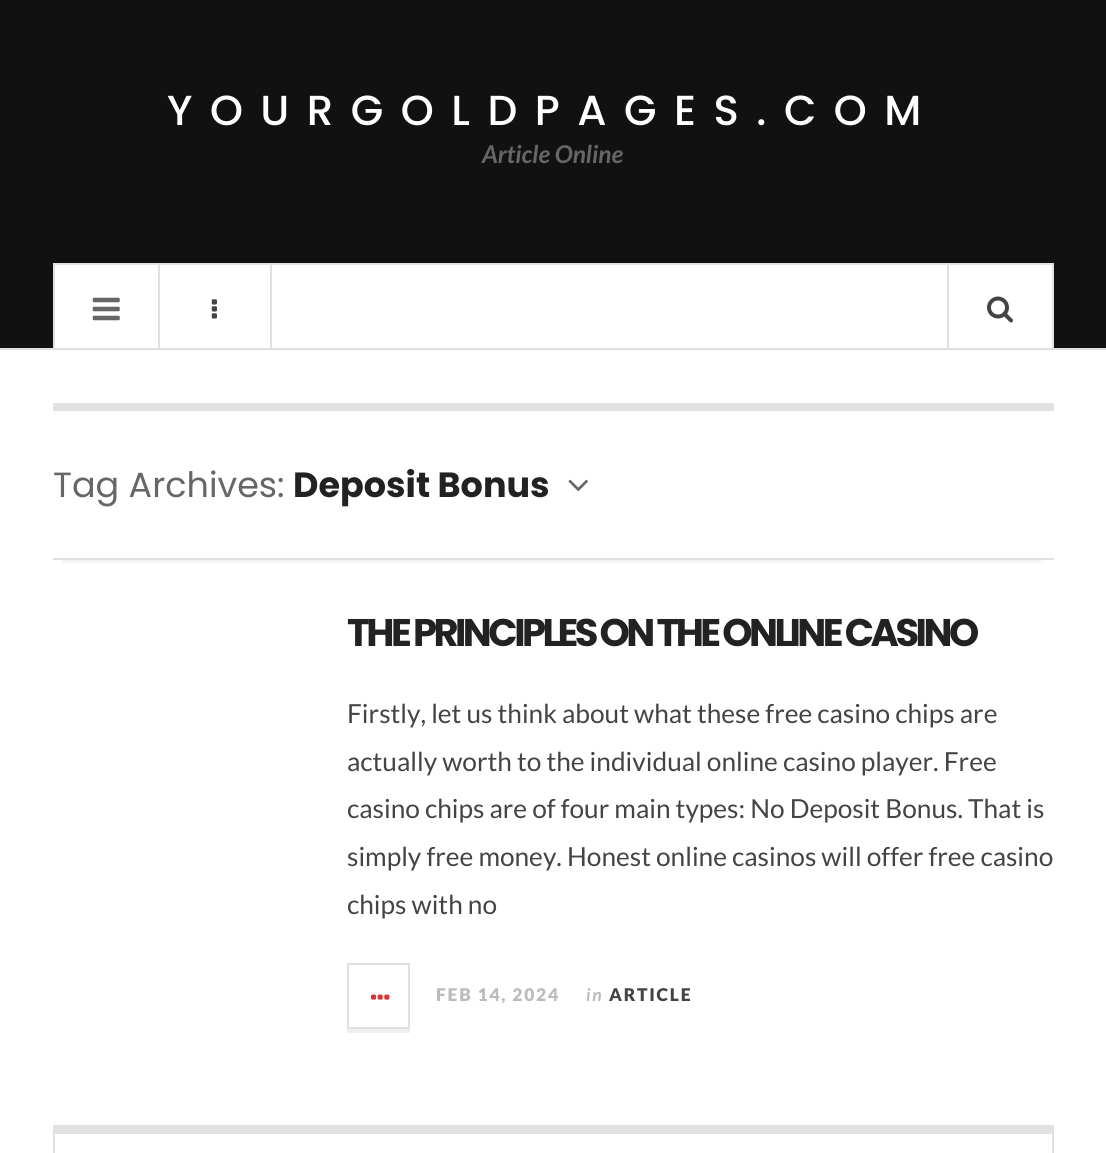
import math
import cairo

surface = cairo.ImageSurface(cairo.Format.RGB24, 1106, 1153)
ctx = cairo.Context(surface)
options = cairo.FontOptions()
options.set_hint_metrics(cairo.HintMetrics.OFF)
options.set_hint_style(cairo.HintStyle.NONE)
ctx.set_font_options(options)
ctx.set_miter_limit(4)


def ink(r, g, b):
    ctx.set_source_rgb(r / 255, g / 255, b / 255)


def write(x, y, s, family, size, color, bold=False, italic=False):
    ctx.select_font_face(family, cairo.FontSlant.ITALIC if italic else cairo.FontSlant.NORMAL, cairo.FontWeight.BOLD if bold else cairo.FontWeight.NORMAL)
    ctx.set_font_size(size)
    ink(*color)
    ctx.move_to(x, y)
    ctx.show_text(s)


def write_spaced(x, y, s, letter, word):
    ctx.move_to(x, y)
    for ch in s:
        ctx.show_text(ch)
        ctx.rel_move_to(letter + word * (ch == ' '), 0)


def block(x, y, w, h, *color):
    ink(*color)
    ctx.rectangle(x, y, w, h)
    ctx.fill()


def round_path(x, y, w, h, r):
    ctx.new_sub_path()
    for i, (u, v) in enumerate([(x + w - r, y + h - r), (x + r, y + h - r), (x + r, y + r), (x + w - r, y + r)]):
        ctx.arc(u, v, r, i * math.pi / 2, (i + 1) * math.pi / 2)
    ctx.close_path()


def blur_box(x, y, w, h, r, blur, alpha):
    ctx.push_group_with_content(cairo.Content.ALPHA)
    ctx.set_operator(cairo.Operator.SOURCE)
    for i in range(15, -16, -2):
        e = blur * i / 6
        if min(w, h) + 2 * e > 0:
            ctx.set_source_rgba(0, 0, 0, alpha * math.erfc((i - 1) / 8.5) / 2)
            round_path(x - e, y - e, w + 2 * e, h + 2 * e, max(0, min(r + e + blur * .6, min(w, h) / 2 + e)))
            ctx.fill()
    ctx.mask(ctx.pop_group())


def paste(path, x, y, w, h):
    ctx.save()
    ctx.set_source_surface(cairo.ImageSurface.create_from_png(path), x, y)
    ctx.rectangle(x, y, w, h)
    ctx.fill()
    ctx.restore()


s1 = dict(family="Lato", size=24.5, color=(102, 102, 102), bold=True, italic=True)
s2 = dict(family="Poppins", size=35, color=(102, 102, 102))
s3 = dict(family="Poppins", size=35, color=(34, 34, 34), bold=True)
s4 = dict(family="Lato", size=26.25, color=(68, 68, 68))

ink(255, 255, 255)
ctx.paint()
block(0, 0, 1106, 348, 17, 17, 17)
block(0, 348, 1106, 2, 225, 225, 225)
ctx.select_font_face("Poppins Medium")
ctx.set_font_size(42)
ink(255, 255, 255)
write_spaced(167, 125, "YOURGOLDPAGES.COM", 17.5, 0)
write(482, 163, "Article Online", **s1)
ink(255, 255, 255)
ctx.rectangle(54, 264, 999, 85)
ctx.fill_preserve()
ink(225, 225, 225)
ctx.stroke()
block(158, 264, 2, 84, 225, 225, 225)
paste("pic1.png", 92, 297, 28, 24)
block(270, 264, 2, 84, 225, 225, 225)
paste("pic2.png", 211, 299, 6, 20)
block(947, 264, 2, 84, 225, 225, 225)
paste("pic3.png", 987, 296, 26, 27)
block(53, 403, 1001, 8, 225, 225, 225)
ctx.save()
ctx.rectangle(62, 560, 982, 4)
ctx.clip()
ink(0, 0, 0)
blur_box(63, 432, 980, 128, 0, 5, 0.1)
ctx.restore()
block(53, 558, 1001, 2, 225, 225, 225)
write(53, 497, "Tag Archives:", **s2)
write(293, 497, "Deposit Bonus", **s3)
paste("pic4.png", 568, 479, 20, 13)
ctx.set_font_size(38.5)
write_spaced(347, 646, "THE PRINCIPLES ON THE ONLINE CASINO", -3.5, 0)
write(347, 723, "Firstly, let us think about what these free casino chips are", **s4)
write(347, 771, "actually worth to the individual online casino player. Free", **s4)
write(347, 818, "casino chips are of four main types: No Deposit Bonus. That is", **s4)
write(347, 866, "simply free money. Honest online casinos will offer free casino", **s4)
write(347, 914, "chips with no", **s4)
ink(240, 240, 240)
ctx.new_path()
ctx.move_to(347, 1029)
ctx.line_to(347, 1033)
ctx.line_to(410, 1033)
ctx.line_to(410, 966)
ctx.line_to(410, 1029)
ctx.close_path()
ctx.fill()
ctx.rectangle(348, 964, 61, 64)
ink(225, 225, 225)
ctx.stroke()
paste("pic5.png", 371, 994, 19, 6)
ctx.select_font_face("Lato Black")
ctx.set_font_size(17.5)
ink(187, 187, 187)
write_spaced(436, 1001, "FEB 14, 2024", 1.75, 0)
ctx.select_font_face("Lato", cairo.FontSlant.ITALIC, cairo.FontWeight.BOLD)
write_spaced(586, 1001, "in", 1.75, 0)
ctx.select_font_face("Lato Black")
ink(68, 68, 68)
write_spaced(609, 1001, "ARTICLE", 1.75, 0)
block(55, 1125, 997, 9, 225, 225, 225)
block(1052, 1125, 2, 28, 225, 225, 225)
block(53, 1125, 2, 28, 225, 225, 225)
surface.write_to_png("screenshot.png")
